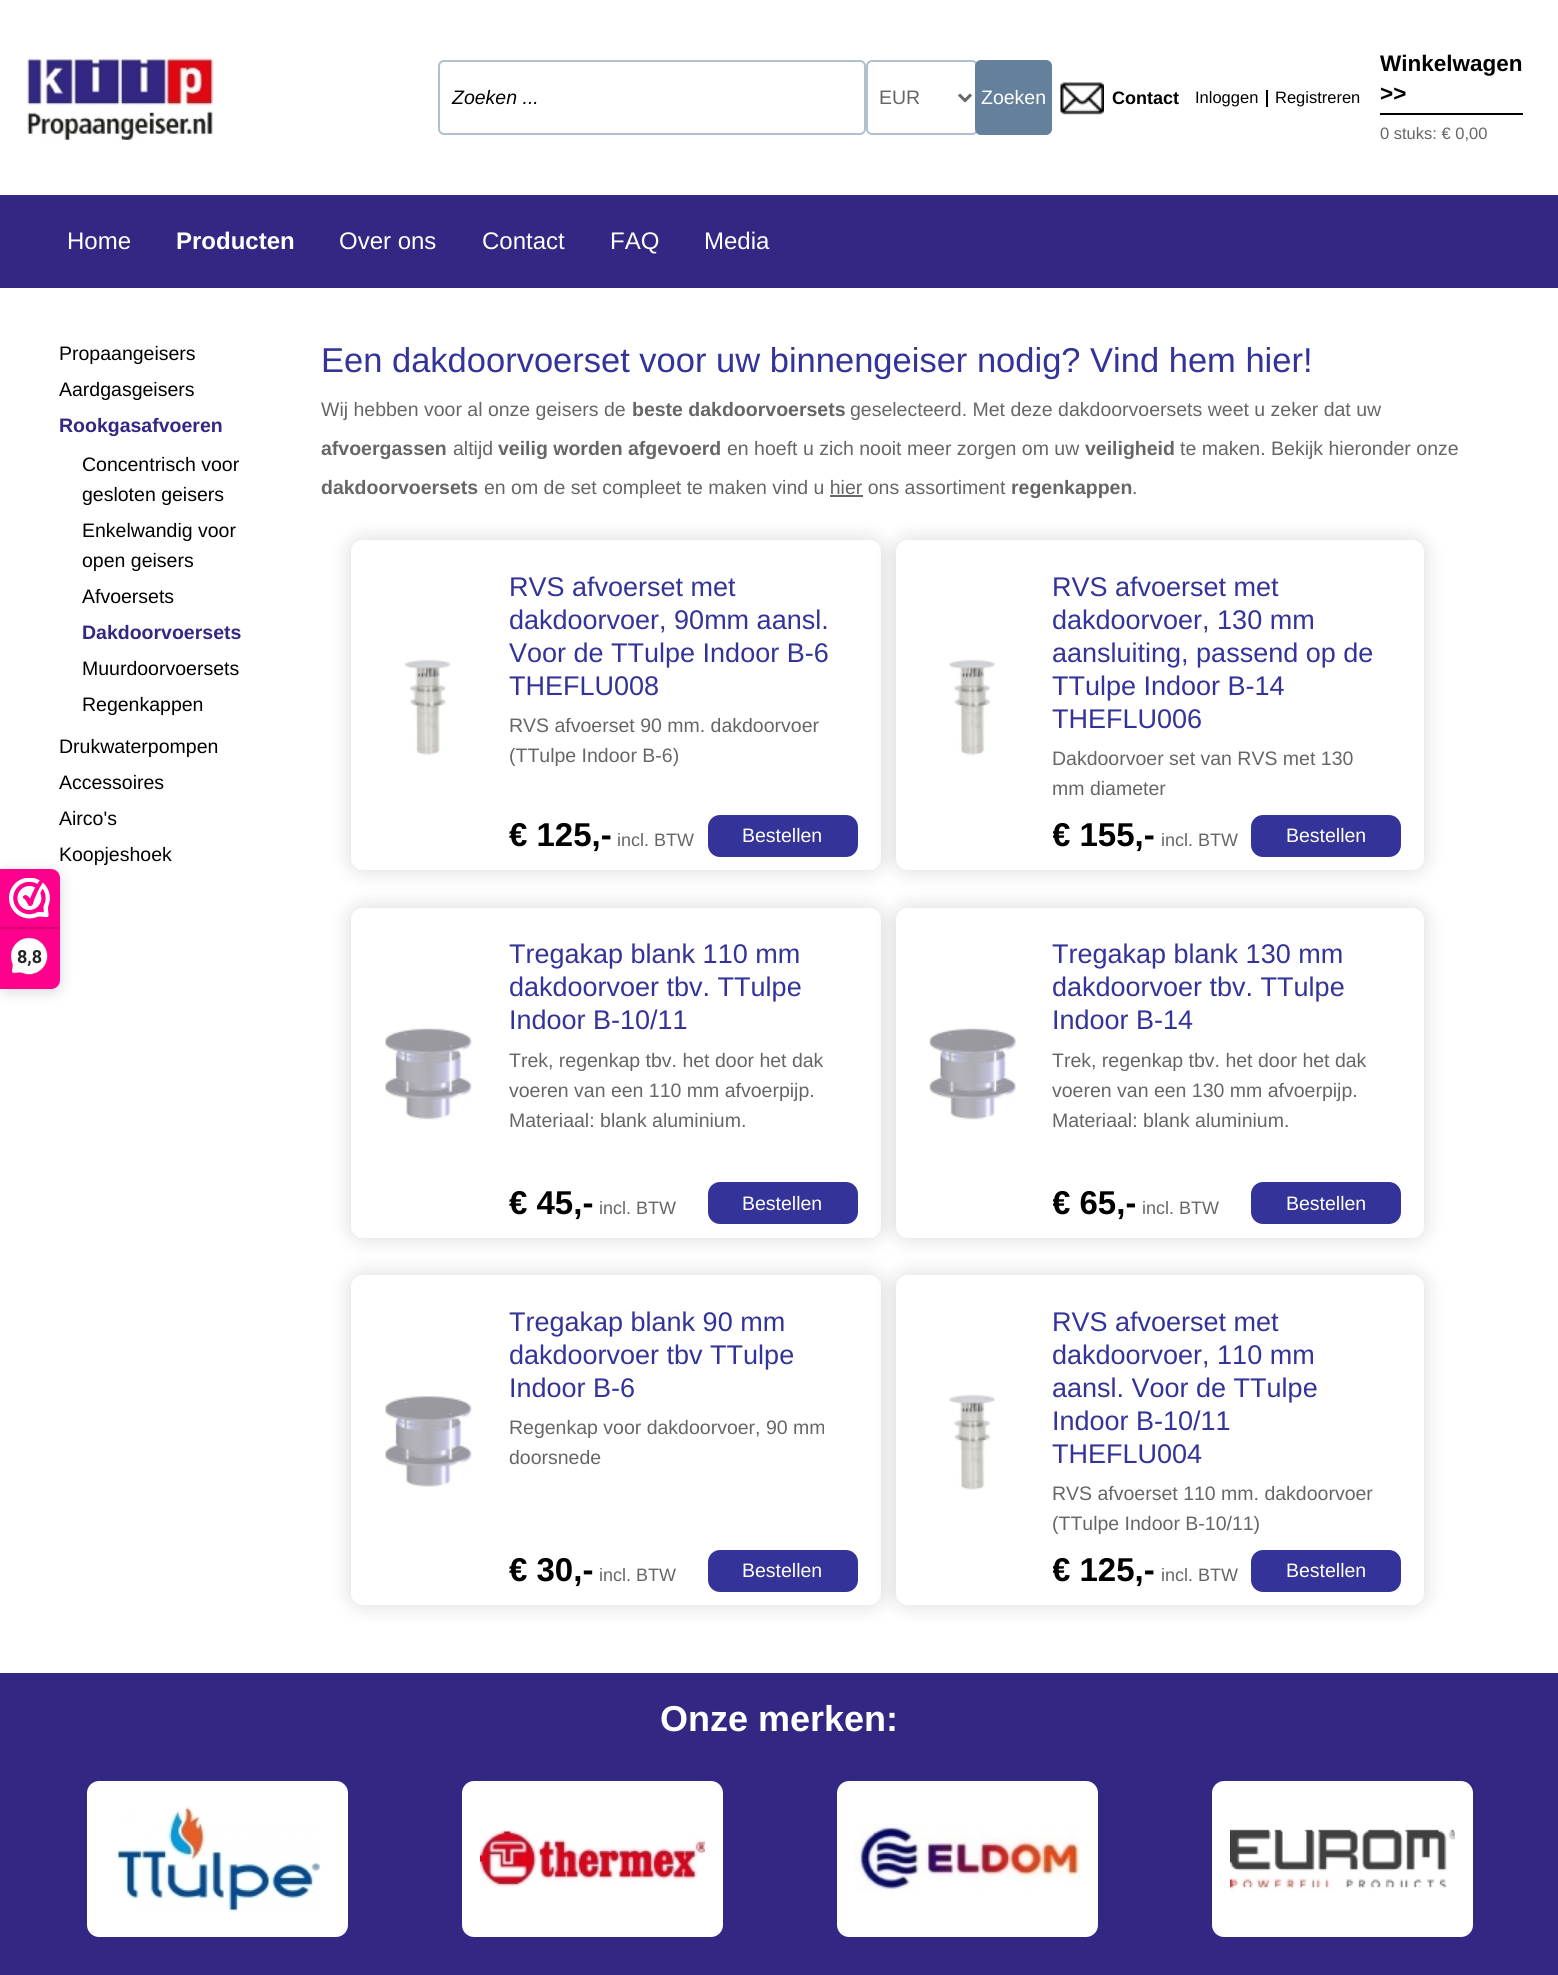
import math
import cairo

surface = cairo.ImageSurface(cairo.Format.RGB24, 1558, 1975)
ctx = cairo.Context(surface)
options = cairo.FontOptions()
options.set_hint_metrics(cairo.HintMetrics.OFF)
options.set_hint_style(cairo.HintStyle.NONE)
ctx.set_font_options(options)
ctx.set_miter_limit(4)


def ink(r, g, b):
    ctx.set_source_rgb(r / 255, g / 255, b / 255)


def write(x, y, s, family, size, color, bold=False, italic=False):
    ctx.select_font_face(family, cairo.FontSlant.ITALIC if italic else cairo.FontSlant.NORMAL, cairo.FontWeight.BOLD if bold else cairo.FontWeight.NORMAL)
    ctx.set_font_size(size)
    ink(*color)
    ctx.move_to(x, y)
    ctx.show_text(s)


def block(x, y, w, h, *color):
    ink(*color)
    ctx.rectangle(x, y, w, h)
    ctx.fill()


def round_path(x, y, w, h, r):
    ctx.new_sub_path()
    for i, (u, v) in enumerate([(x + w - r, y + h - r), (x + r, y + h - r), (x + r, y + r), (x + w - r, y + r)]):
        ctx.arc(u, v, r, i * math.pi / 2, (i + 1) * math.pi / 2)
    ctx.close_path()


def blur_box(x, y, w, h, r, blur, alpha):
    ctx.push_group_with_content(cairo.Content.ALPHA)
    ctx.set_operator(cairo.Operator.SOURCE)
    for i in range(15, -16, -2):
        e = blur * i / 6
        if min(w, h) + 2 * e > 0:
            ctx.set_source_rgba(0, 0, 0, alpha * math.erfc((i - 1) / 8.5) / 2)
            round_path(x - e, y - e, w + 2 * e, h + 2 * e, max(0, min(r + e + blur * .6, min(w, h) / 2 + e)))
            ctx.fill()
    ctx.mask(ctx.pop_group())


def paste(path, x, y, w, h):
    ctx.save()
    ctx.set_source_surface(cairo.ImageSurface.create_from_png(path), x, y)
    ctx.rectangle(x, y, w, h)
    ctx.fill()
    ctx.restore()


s1 = dict(family="Roboto", size=18, color=(39, 38, 38), bold=True)
s2 = dict(family="Liberation Sans", size=19.5, color=(0, 0, 0), italic=True)
s3 = dict(family="Liberation Sans", size=19.5, color=(102, 102, 102))
s4 = dict(family="Liberation Sans", size=19.5, color=(255, 255, 255))
s5 = dict(family="Liberation Sans", size=18, color=(0, 0, 0), bold=True)
s6 = dict(family="Liberation Sans", size=16.5, color=(0, 0, 0))
s7 = dict(family="Liberation Sans", size=22.5, color=(0, 0, 0), bold=True)
s8 = dict(family="Liberation Sans", size=16.5, color=(102, 102, 102))
s9 = dict(family="Liberation Sans", size=24, color=(255, 255, 255))
s10 = dict(family="Liberation Sans", size=24, color=(255, 255, 255), bold=True)
s11 = dict(family="Liberation Sans", size=19.5, color=(0, 0, 0))
s12 = dict(family="Liberation Sans", size=19.5, color=(50, 39, 131), bold=True)
s13 = dict(family="Liberation Sans", size=34.5, color=(51, 51, 153))
s14 = dict(family="Liberation Sans", size=19.5, color=(102, 102, 102), bold=True)
s15 = dict(family="Liberation Sans", size=27, color=(51, 51, 153))
s16 = dict(family="Liberation Sans", size=33, color=(0, 0, 0), bold=True)
s17 = dict(family="Liberation Sans", size=18, color=(102, 102, 102))
s18 = dict(family="Liberation Sans", size=36, color=(255, 255, 255), bold=True)

ink(255, 255, 255)
ctx.paint()
ink(0, 0, 0)
blur_box(0, 872, 60, 120, 9, 7.5, 0.15)
ink(254, 0, 140)
ctx.new_path()
ctx.move_to(0, 869)
ctx.line_to(51, 869)
ctx.curve_to(56, 869, 60, 873, 60, 878)
ctx.line_to(60, 980)
ctx.curve_to(60, 985, 56, 989, 51, 989)
ctx.line_to(0, 989)
ctx.close_path()
ctx.fill()
paste("pic1.png", 9, 878, 41, 41)
block(0, 927, 59, 2, 216, 0, 119)
paste("pic2.png", 10, 937, 38, 38)
write(17, 963, "8,8", **s1)
paste("pic3.png", 27, 56, 187, 84)
round_path(439, 61, 426, 73, 5)
ink(178, 192, 206)
ctx.stroke()
write(452, 104, "Zoeken ...", **s2)
round_path(867, 61, 110, 73, 5)
ink(178, 192, 206)
ctx.stroke()
ctx.new_path()
ctx.move_to(959, 94.5)
ctx.line_to(965, 100.5)
ctx.line_to(971, 94.5)
ink(102, 102, 102)
ctx.set_line_width(3)
ctx.stroke()
write(879, 104, "EUR", **s3)
ink(100, 128, 156)
round_path(975, 60, 77, 75, 6)
ctx.fill()
write(981, 104, "Zoeken", **s4)
paste("pic4.png", 1060, 82, 44, 33)
write(1112, 104, "Contact", **s5)
write(1195, 103, "Inloggen", **s6)
block(1266, 90, 2, 17, 0, 0, 0)
write(1275, 103, "Registreren", **s6)
block(1380, 113, 143, 2, 0, 0, 0)
write(1380, 71, "Winkelwagen", **s7)
write(1380, 101, ">>", **s7)
write(1380, 139, "0 stuks: € 0,00", **s8)
block(0, 195, 1558, 93, 50, 39, 131)
write(67, 249, "Home", **s9)
write(176, 249, "Producten", **s10)
write(339, 249, "Over ons", **s9)
write(482, 249, "Contact", **s9)
write(610, 249, "FAQ", **s9)
write(704, 249, "Media", **s9)
write(59, 360, "Propaangeisers", **s11)
write(59, 396, "Aardgasgeisers", **s11)
write(59, 432, "Rookgasafvoeren", **s12)
write(82, 471, "Concentrisch voor", **s11)
write(82, 501, "gesloten geisers", **s11)
write(82, 537, "Enkelwandig voor", **s11)
write(82, 567, "open geisers", **s11)
write(82, 603, "Afvoersets", **s11)
write(82, 639, "Dakdoorvoersets", **s12)
write(82, 675, "Muurdoorvoersets", **s11)
write(82, 711, "Regenkappen", **s11)
write(59, 753, "Drukwaterpompen", **s11)
write(59, 789, "Accessoires", **s11)
write(59, 825, "Airco's", **s11)
write(59, 861, "Koopjeshoek", **s11)
write(321, 372, "Een dakdoorvoerset voor uw binnengeiser nodig? Vind hem hier!", **s13)
write(321, 416, "Wij hebben voor al onze geisers de", **s3)
write(632, 416, "beste dakdoorvoersets", **s14)
write(850, 416, "geselecteerd. Met deze dakdoorvoersets weet u zeker dat uw", **s3)
write(321, 455, "afvoergassen", **s14)
write(453, 455, "altijd", **s3)
write(498, 455, "veilig worden afgevoerd", **s14)
write(727, 455, "en hoeft u zich nooit meer zorgen om uw", **s3)
write(1085, 455, "veiligheid", **s14)
write(1180, 455, "te maken. Bekijk hieronder onze", **s3)
write(321, 494, "dakdoorvoersets", **s14)
write(484, 494, "en om de set compleet te maken vind u hier ons assortiment", **s3)
write(1011, 494, "regenkappen", **s14)
write(1132, 494, ".", **s3)
block(830, 495, 33, 2, 102, 102, 102)
ink(0, 0, 0)
blur_box(351, 540, 530, 330, 12, 11, 0.15)
ink(255, 255, 255)
round_path(351, 540, 530, 330, 12)
ctx.fill()
paste("pic5.png", 404, 659, 47, 96)
write(509, 596, "RVS afvoerset met", **s15)
write(509, 629, "dakdoorvoer, 90mm aansl.", **s15)
write(509, 662, "Voor de TTulpe Indoor B-6", **s15)
write(509, 695, "THEFLU008", **s15)
write(509, 732, "RVS afvoerset 90 mm. dakdoorvoer", **s3)
write(509, 762, "(TTulpe Indoor B-6)", **s3)
write(509, 846, "€ 125,-", **s16)
write(617, 846, "incl. BTW", **s17)
ink(51, 51, 153)
round_path(708, 815, 150, 42, 12)
ctx.fill()
write(742, 842, "Bestellen", **s4)
ink(0, 0, 0)
blur_box(896, 540, 528, 330, 12, 11, 0.15)
ink(255, 255, 255)
round_path(896, 540, 528, 330, 12)
ctx.fill()
paste("pic6.png", 949, 659, 46, 96)
write(1052, 596, "RVS afvoerset met", **s15)
write(1052, 629, "dakdoorvoer, 130 mm", **s15)
write(1052, 662, "aansluiting, passend op de", **s15)
write(1052, 695, "TTulpe Indoor B-14", **s15)
write(1052, 728, "THEFLU006", **s15)
write(1052, 765, "Dakdoorvoer set van RVS met 130", **s3)
write(1052, 795, "mm diameter", **s3)
ctx.save()
ctx.rectangle(1053, 821, 185, 34)
ctx.clip()
write(1052, 846, "€ 155,-", **s16)
ctx.restore()
write(1161, 846, "incl. BTW", **s17)
ink(51, 51, 153)
round_path(1251, 815, 150, 42, 12)
ctx.fill()
write(1286, 842, "Bestellen", **s4)
ink(0, 0, 0)
blur_box(351, 908, 530, 330, 12, 11, 0.15)
ink(255, 255, 255)
round_path(351, 908, 530, 330, 12)
ctx.fill()
paste("pic7.png", 385, 1028, 87, 92)
write(509, 963, "Tregakap blank 110 mm", **s15)
write(509, 996, "dakdoorvoer tbv. TTulpe", **s15)
write(509, 1029, "Indoor B-10/11", **s15)
write(509, 1067, "Trek, regenkap tbv. het door het dak", **s3)
write(509, 1097, "voeren van een 110 mm afvoerpijp.", **s3)
write(509, 1127, "Materiaal: blank aluminium.", **s3)
write(509, 1214, "€ 45,-", **s16)
write(599, 1214, "incl. BTW", **s17)
ink(51, 51, 153)
round_path(708, 1182, 150, 42, 12)
ctx.fill()
write(742, 1210, "Bestellen", **s4)
ink(0, 0, 0)
blur_box(896, 908, 528, 330, 12, 11, 0.15)
ink(255, 255, 255)
round_path(896, 908, 528, 330, 12)
ctx.fill()
paste("pic8.png", 929, 1028, 87, 92)
write(1052, 963, "Tregakap blank 130 mm", **s15)
write(1052, 996, "dakdoorvoer tbv. TTulpe", **s15)
write(1052, 1029, "Indoor B-14", **s15)
write(1052, 1067, "Trek, regenkap tbv. het door het dak", **s3)
write(1052, 1097, "voeren van een 130 mm afvoerpijp.", **s3)
write(1052, 1127, "Materiaal: blank aluminium.", **s3)
ctx.save()
ctx.rectangle(1053, 1188, 167, 35)
ctx.clip()
write(1052, 1214, "€ 65,-", **s16)
ctx.restore()
write(1142, 1214, "incl. BTW", **s17)
ink(51, 51, 153)
round_path(1251, 1182, 150, 42, 12)
ctx.fill()
write(1286, 1210, "Bestellen", **s4)
ink(0, 0, 0)
blur_box(351, 1275, 530, 330, 12, 11, 0.15)
ink(255, 255, 255)
round_path(351, 1275, 530, 330, 12)
ctx.fill()
paste("pic9.png", 385, 1396, 87, 91)
write(509, 1331, "Tregakap blank 90 mm", **s15)
write(509, 1364, "dakdoorvoer tbv TTulpe", **s15)
write(509, 1397, "Indoor B-6", **s15)
write(509, 1434, "Regenkap voor dakdoorvoer, 90 mm", **s3)
write(509, 1464, "doorsnede", **s3)
write(509, 1581, "€ 30,-", **s16)
write(599, 1581, "incl. BTW", **s17)
ink(51, 51, 153)
round_path(708, 1550, 150, 42, 12)
ctx.fill()
write(742, 1577, "Bestellen", **s4)
ink(0, 0, 0)
blur_box(896, 1275, 528, 330, 12, 11, 0.15)
ink(255, 255, 255)
round_path(896, 1275, 528, 330, 12)
ctx.fill()
paste("pic6.png", 949, 1394, 46, 96)
write(1052, 1331, "RVS afvoerset met", **s15)
write(1052, 1364, "dakdoorvoer, 110 mm", **s15)
write(1052, 1397, "aansl. Voor de TTulpe", **s15)
write(1052, 1430, "Indoor B-10/11", **s15)
write(1052, 1463, "THEFLU004", **s15)
write(1052, 1500, "RVS afvoerset 110 mm. dakdoorvoer", **s3)
write(1052, 1530, "(TTulpe Indoor B-10/11)", **s3)
ctx.save()
ctx.rectangle(1053, 1556, 185, 34)
ctx.clip()
write(1052, 1581, "€ 125,-", **s16)
ctx.restore()
write(1161, 1581, "incl. BTW", **s17)
ink(51, 51, 153)
round_path(1251, 1550, 150, 42, 12)
ctx.fill()
write(1286, 1577, "Bestellen", **s4)
block(0, 1673, 1558, 302, 50, 39, 131)
write(660, 1731, "Onze merken:", **s18)
round_path(87, 1781, 261, 156, 12)
ctx.fill()
paste("pic10.png", 115, 1806, 206, 107)
round_path(462, 1781, 261, 156, 12)
ctx.fill()
paste("pic11.png", 480, 1829, 225, 58)
round_path(837, 1781, 261, 156, 12)
ctx.fill()
paste("pic12.png", 855, 1824, 225, 69)
round_path(1212, 1781, 261, 156, 12)
ctx.fill()
paste("pic13.png", 1230, 1829, 225, 62)
surface.write_to_png("screenshot.png")
